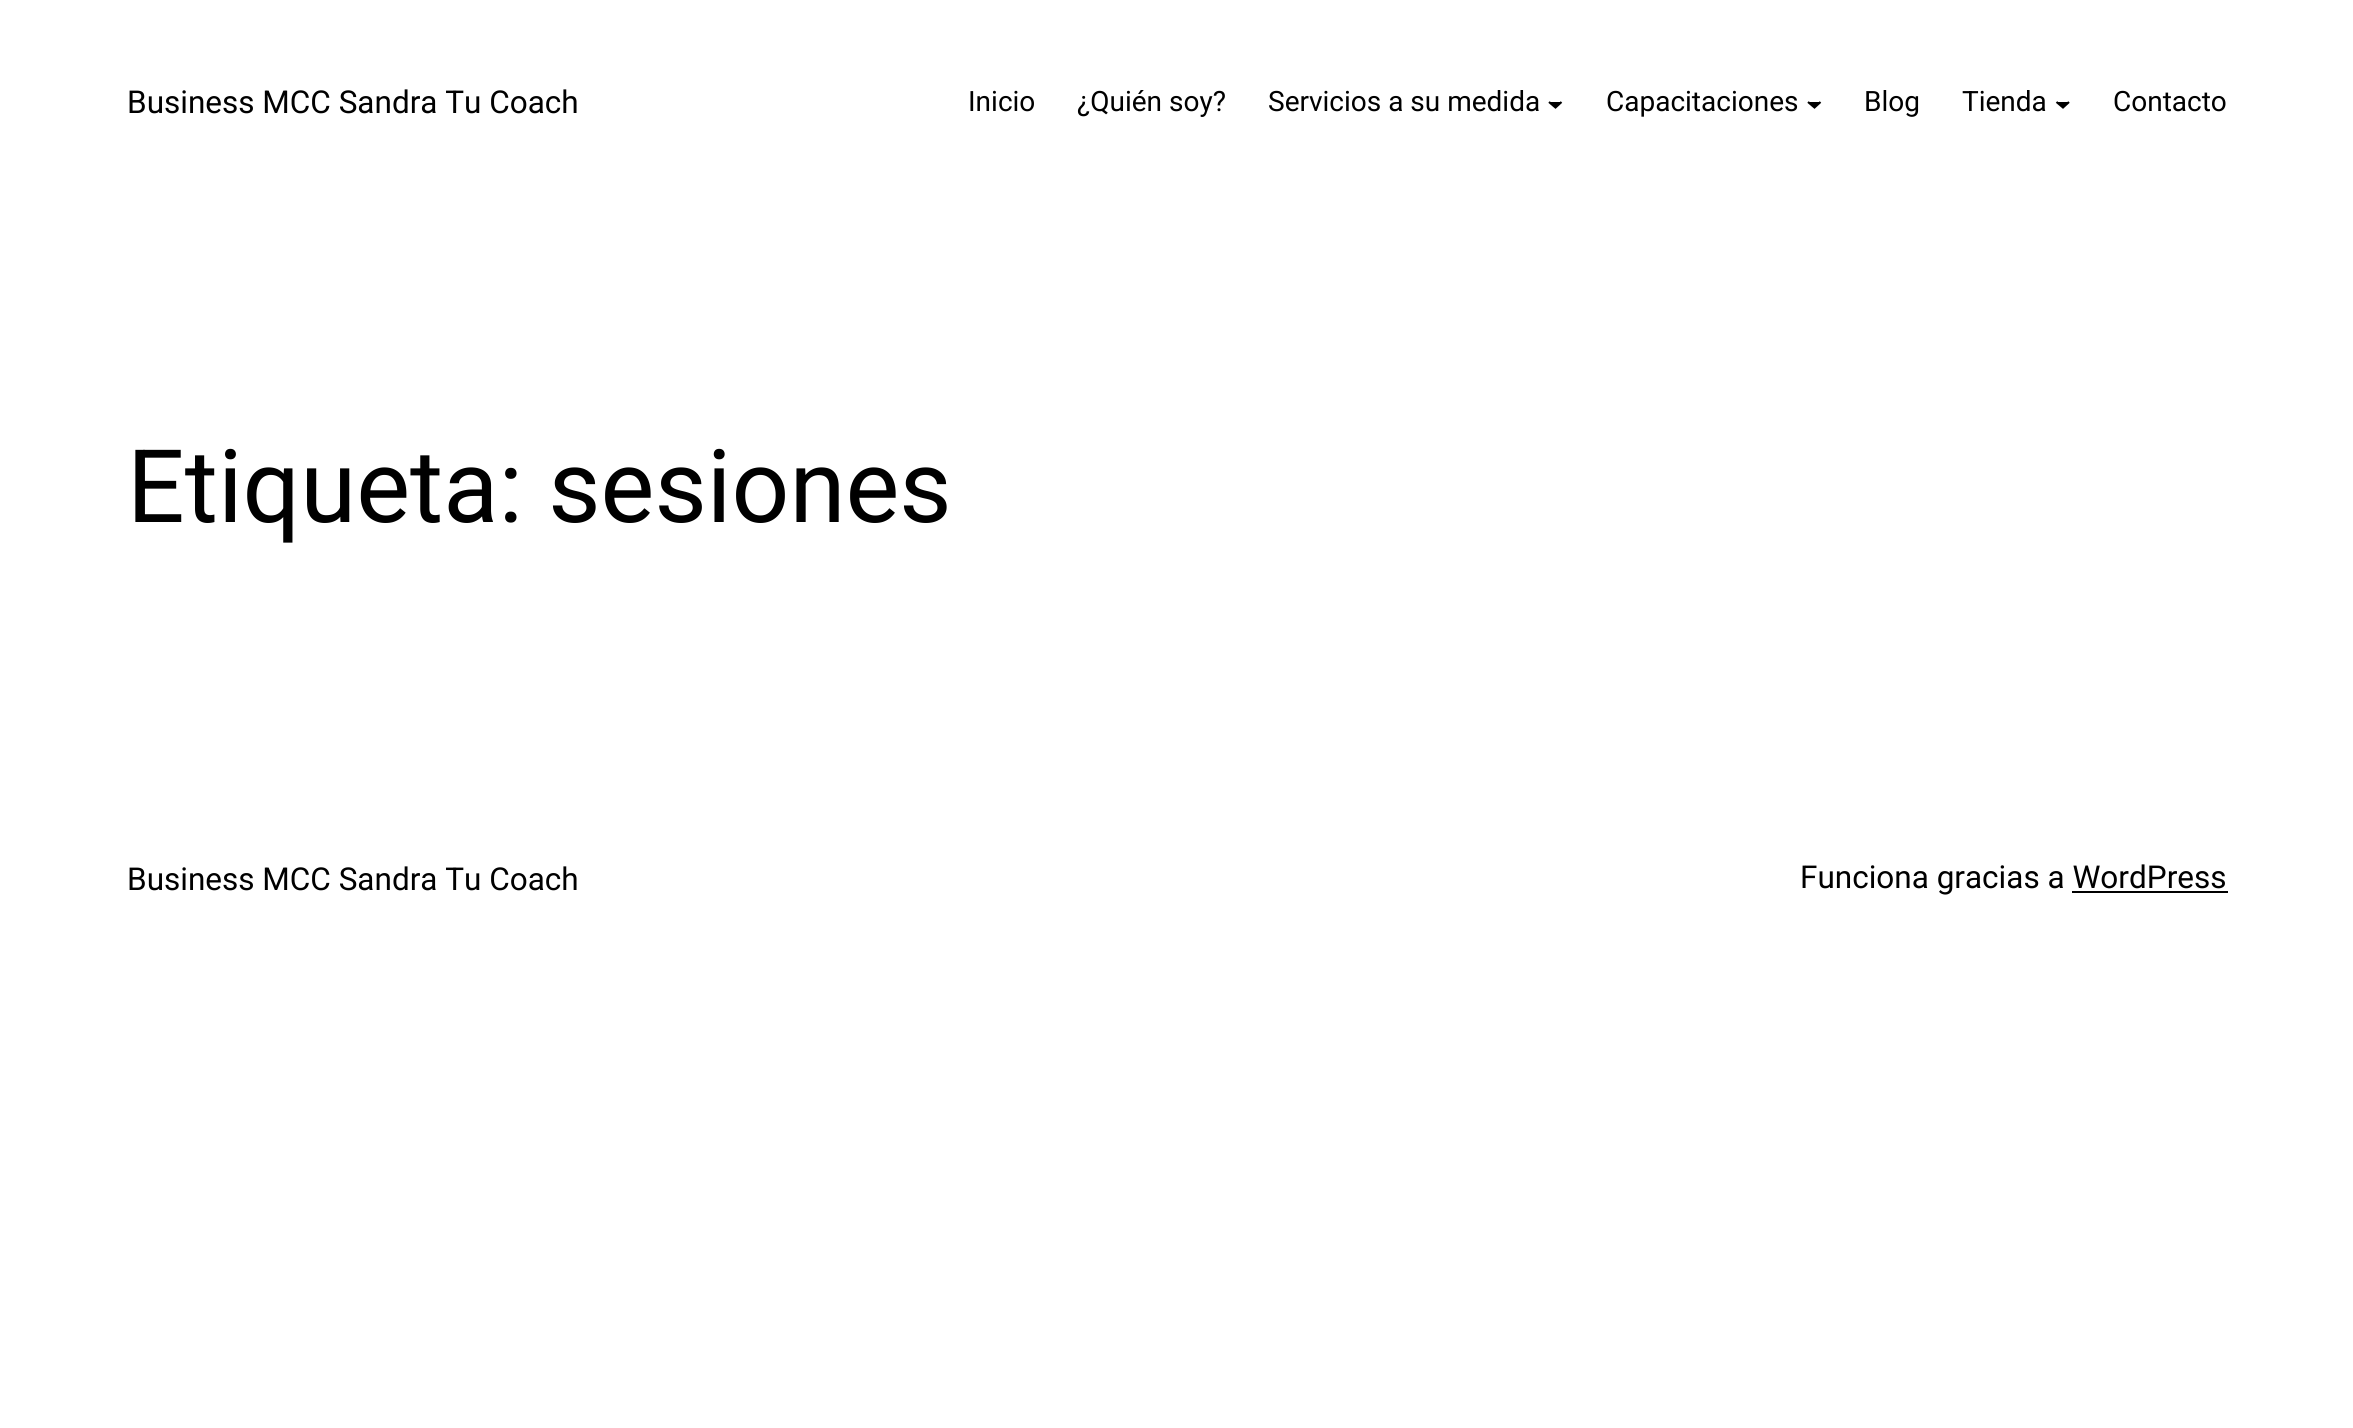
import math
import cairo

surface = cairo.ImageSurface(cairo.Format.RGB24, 2353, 1428)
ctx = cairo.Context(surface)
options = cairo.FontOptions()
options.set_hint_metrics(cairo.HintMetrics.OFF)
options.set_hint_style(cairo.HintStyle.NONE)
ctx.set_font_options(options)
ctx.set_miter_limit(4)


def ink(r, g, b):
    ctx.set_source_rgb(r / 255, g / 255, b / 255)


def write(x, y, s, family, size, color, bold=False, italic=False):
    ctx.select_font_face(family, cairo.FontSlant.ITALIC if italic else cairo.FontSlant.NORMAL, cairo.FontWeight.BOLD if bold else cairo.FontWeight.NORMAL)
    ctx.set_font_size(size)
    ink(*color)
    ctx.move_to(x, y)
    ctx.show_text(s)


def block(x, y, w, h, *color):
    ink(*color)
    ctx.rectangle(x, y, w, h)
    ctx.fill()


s1 = dict(family="Roboto", size=31.5, color=(0, 0, 0))
s2 = dict(family="Roboto", size=28, color=(0, 0, 0))
s3 = dict(family="Roboto", size=101.5, color=(0, 0, 0))

ink(255, 255, 255)
ctx.paint()
write(127, 113, "Business MCC Sandra Tu Coach", **s1)
write(968, 111, "Inicio", **s2)
write(1077, 111, "¿Quién soy?", **s2)
write(1268, 111, "Servicios a su medida", **s2)
ctx.new_path()
ctx.move_to(1549, 102)
ctx.line_to(1555.5, 107.5)
ctx.line_to(1561.5, 102)
ctx.fill_preserve()
ctx.set_line_width(2.1)
ctx.stroke()
write(1606, 111, "Capacitaciones", **s2)
ctx.new_path()
ctx.move_to(1808, 102)
ctx.line_to(1814.5, 107.5)
ctx.line_to(1820.5, 102)
ctx.fill_preserve()
ctx.stroke()
write(1864, 111, "Blog", **s2)
write(1962, 111, "Tienda", **s2)
ctx.new_path()
ctx.move_to(2056.5, 102)
ctx.line_to(2063, 107.5)
ctx.line_to(2069, 102)
ctx.fill_preserve()
ctx.stroke()
write(2113, 111, "Contacto", **s2)
write(127, 522, "Etiqueta: sesiones", **s3)
write(127, 890, "Business MCC Sandra Tu Coach", **s1)
write(1800, 888, "Funciona gracias a WordPress", **s1)
block(2072, 891, 156, 2, 0, 0, 0)
surface.write_to_png("screenshot.png")
